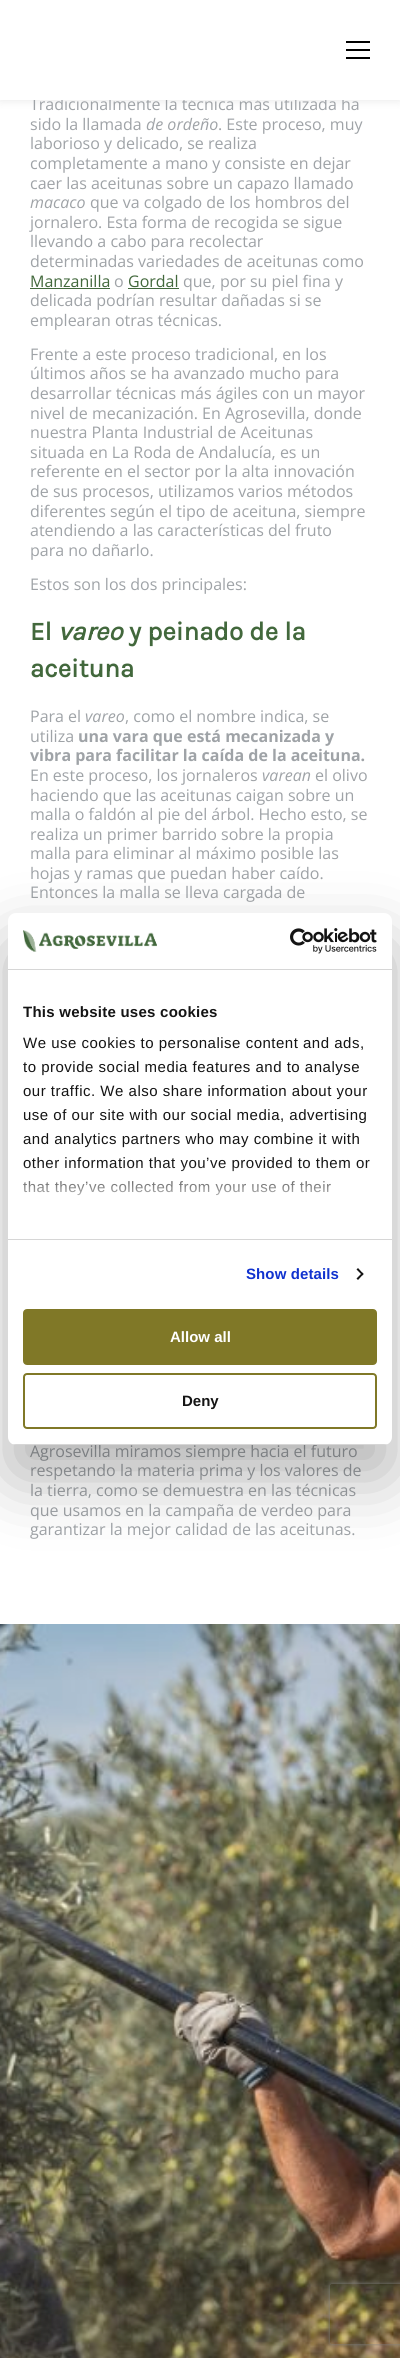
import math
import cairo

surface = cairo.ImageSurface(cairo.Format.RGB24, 400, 2358)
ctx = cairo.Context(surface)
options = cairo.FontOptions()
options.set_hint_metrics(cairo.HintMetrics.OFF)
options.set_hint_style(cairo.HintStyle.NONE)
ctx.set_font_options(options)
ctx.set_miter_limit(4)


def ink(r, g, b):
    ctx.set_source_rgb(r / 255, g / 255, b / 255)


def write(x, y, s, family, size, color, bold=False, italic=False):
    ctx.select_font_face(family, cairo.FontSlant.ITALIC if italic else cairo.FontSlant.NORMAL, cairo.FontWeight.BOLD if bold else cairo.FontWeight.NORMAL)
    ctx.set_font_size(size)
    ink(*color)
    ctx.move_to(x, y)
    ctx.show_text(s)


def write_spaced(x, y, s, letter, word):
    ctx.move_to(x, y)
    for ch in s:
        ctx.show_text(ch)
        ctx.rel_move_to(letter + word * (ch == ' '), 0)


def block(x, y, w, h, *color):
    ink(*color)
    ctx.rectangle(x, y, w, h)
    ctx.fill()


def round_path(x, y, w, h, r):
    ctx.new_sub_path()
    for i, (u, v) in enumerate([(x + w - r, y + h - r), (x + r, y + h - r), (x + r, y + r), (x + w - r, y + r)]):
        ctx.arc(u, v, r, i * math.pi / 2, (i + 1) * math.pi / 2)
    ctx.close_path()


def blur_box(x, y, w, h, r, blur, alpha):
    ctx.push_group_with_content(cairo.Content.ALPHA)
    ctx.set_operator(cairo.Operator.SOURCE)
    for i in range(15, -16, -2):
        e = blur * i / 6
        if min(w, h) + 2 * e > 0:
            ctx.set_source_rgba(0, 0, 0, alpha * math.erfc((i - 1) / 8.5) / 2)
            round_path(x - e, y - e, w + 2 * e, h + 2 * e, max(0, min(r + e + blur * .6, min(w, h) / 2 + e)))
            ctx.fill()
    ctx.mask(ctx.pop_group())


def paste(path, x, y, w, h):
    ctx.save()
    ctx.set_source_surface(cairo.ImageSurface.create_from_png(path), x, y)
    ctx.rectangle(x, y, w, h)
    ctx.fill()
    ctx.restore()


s1 = dict(family="Open Sans", size=16, color=(159, 163, 167))
s2 = dict(family="Open Sans", size=16, color=(159, 163, 167), italic=True)
s3 = dict(family="Open Sans", size=16, color=(66, 104, 60))
s4 = dict(family="Karla", size=26, color=(66, 104, 60), bold=True)
s5 = dict(family="Karla", size=26, color=(66, 104, 60), bold=True, italic=True)
s6 = dict(family="Open Sans", size=16, color=(159, 163, 167), bold=True)
s7 = dict(family="Liberation Sans", size=15, color=(255, 255, 255), bold=True)
s8 = dict(family="Liberation Sans", size=15, color=(20, 20, 20), bold=True)

ink(255, 255, 255)
ctx.paint()
ink(0, 0, 0)
blur_box(0, 0, 400, 100, 0, 5, 0.1)
write(30, 110, "Tradicionalmente la técnica más utilizada ha", **s1)
block(0, 0, 400, 100, 255, 255, 255)
block(346, 41, 24, 2, 0, 0, 0)
block(346, 49, 24, 2, 0, 0, 0)
block(346, 57, 24, 2, 0, 0, 0)
write(30, 130, "sido la llamada", **s1)
write(146, 130, "de ordeño", **s2)
write(218, 130, ". Este proceso, muy", **s1)
write(30, 149, "laborioso y delicado, se realiza", **s1)
write(30, 169, "completamente a mano y consiste en dejar", **s1)
write(30, 189, "caer las aceitunas sobre un capazo llamado", **s1)
write(30, 208, "macaco", **s2)
write(90, 208, "que va colgado de los hombros del", **s1)
write(30, 228, "jornalero. Esta forma de recogida se sigue", **s1)
write(30, 247, "llevando a cabo para recolectar", **s1)
write(30, 267, "determinadas variedades de aceitunas como", **s1)
write(30, 287, "Manzanilla", **s3)
block(30, 288, 80, 1, 66, 104, 60)
write(114, 287, "o", **s1)
write(128, 287, "Gordal", **s3)
block(128, 288, 51, 1, 66, 104, 60)
write(183, 287, "que, por su piel fina y", **s1)
write(30, 306, "delicada podrían resultar dañadas si se", **s1)
write(30, 326, "emplearan otras técnicas.", **s1)
write(30, 360, "Frente a este proceso tradicional, en los", **s1)
write(30, 379, "últimos años se ha avanzado mucho para", **s1)
write(30, 399, "desarrollar técnicas más ágiles con un mayor", **s1)
write(30, 419, "nivel de mecanización. En Agrosevilla, donde", **s1)
write(30, 438, "nuestra Planta Industrial de Aceitunas", **s1)
write(30, 458, "situada en La Roda de Andalucía, es un", **s1)
write(30, 477, "referente en el sector por la alta innovación", **s1)
write(30, 497, "de sus procesos, utilizamos varios métodos", **s1)
write(30, 517, "diferentes según el tipo de aceituna, siempre", **s1)
write(30, 536, "atendiendo a las características del fruto", **s1)
write(30, 556, "para no dañarlo.", **s1)
write(30, 590, "Estos son los dos principales:", **s1)
write(30, 640, "El", **s4)
write(58, 640, "vareo", **s5)
write(129, 640, "y peinado de la", **s4)
write(30, 677, "aceituna", **s4)
write(30, 722, "Para el", **s1)
write(85, 722, "vareo", **s2)
write(125, 722, ", como el nombre indica, se", **s1)
write(30, 742, "utiliza", **s1)
write(78, 742, "una vara que está mecanizada y", **s6)
write(30, 761, "vibra para facilitar la caída de la aceituna.", **s6)
write(30, 781, "En este proceso, los jornaleros", **s1)
write(262, 781, "varean", **s2)
write(315, 781, "el olivo", **s1)
write(30, 801, "haciendo que las aceitunas caigan sobre un", **s1)
write(30, 820, "malla o faldón al pie del árbol. Hecho esto, se", **s1)
write(30, 840, "realiza un primer barrido sobre la propia", **s1)
write(30, 859, "malla para eliminar al máximo posible las", **s1)
write(30, 879, "hojas y ramas que puedan haber caído.", **s1)
write(30, 898, "Entonces la malla se lleva cargada de", **s1)
write(30, 1457, "Agrosevilla miramos siempre hacia el futuro", **s1)
write(30, 1476, "respetando la materia prima y los valores de", **s1)
write(30, 1496, "la tierra, como se demuestra en las técnicas", **s1)
write(30, 1516, "que usamos en la campaña de verdeo para", **s1)
write(30, 1535, "garantizar la mejor calidad de las aceitunas.", **s1)
paste("pic1.png", 0, 1624, 400, 734)
ink(0, 0, 0)
blur_box(8, 945, 384, 532, 8, 34, 0.3)
ink(255, 255, 255)
round_path(8, 913, 384, 532, 8)
ctx.fill()
block(8, 969, 384, 1, 214, 214, 214)
paste("pic2.png", 23, 930, 134, 22)
paste("pic3.png", 290, 928, 87, 26)
block(8, 1239, 384, 1, 214, 214, 214)
ctx.select_font_face("Liberation Sans", cairo.FontSlant.NORMAL, cairo.FontWeight.BOLD)
ctx.set_font_size(15)
ink(20, 20, 20)
write_spaced(23, 1017, "This website uses cookies", 0.25, 0)
ctx.select_font_face("Liberation Sans")
write_spaced(23, 1048, "We use cookies to personalise content and ads,", 0.5, 0)
write_spaced(23, 1072, "to provide social media features and to analyse", 0.5, 0)
write_spaced(23, 1096, "our traffic. We also share information about your", 0.5, 0)
write_spaced(23, 1120, "use of our site with our social media, advertising", 0.5, 0)
write_spaced(23, 1144, "and analytics partners who may combine it with", 0.5, 0)
write_spaced(23, 1168, "other information that you’ve provided to them or", 0.5, 0)
write_spaced(23, 1192, "that they’ve collected from your use of their", 0.5, 0)
gradient = cairo.LinearGradient(194, 1239, 194, 1164)
gradient.add_color_stop_rgba(0, 1, 1, 1, 1)
gradient.add_color_stop_rgba(0.5, 1, 1, 1, 0.8)
gradient.add_color_stop_rgba(1, 1, 1, 1, 0)
ctx.set_source(gradient)
ctx.rectangle(23, 1165, 344, 31)
ctx.fill()
ctx.select_font_face("Liberation Sans", cairo.FontSlant.NORMAL, cairo.FontWeight.BOLD)
ink(16, 50, 207)
write_spaced(246, 1279, "Show details", 0.1, 0)
ink(20, 20, 20)
ctx.new_path()
ctx.move_to(358, 1268)
ctx.line_to(363.5, 1274)
ctx.line_to(362.5, 1275.5)
ctx.line_to(356.5, 1269.5)
ctx.close_path()
ctx.fill()
ctx.new_path()
ctx.move_to(362.5, 1272.5)
ctx.line_to(363.5, 1274)
ctx.line_to(358, 1280)
ctx.line_to(356.5, 1278.5)
ctx.close_path()
ctx.fill()
ctx.save()
round_path(8, 913, 384, 532, 8)
ctx.clip()
block(8, 1444, 384, 1, 214, 214, 214)
ctx.restore()
ink(128, 120, 39)
round_path(24, 1310, 352, 54, 3)
ctx.fill_preserve()
ctx.stroke()
write(170, 1342, "Allow all", **s7)
round_path(24, 1374, 352, 54, 3)
ink(128, 120, 39)
ctx.stroke()
write(182, 1406, "Deny", **s8)
ctx.save()
ctx.set_fill_rule(cairo.FillRule.EVEN_ODD)
ctx.new_path()
ctx.move_to(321, 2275)
ctx.line_to(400, 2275)
ctx.line_to(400, 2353)
ctx.line_to(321, 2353)
ctx.close_path()
ctx.move_to(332, 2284)
ctx.line_to(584, 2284)
ctx.curve_to(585, 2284, 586, 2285, 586, 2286)
ctx.line_to(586, 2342)
ctx.curve_to(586, 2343, 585, 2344, 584, 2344)
ctx.line_to(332, 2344)
ctx.curve_to(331, 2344, 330, 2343, 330, 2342)
ctx.line_to(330, 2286)
ctx.curve_to(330, 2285, 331, 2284, 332, 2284)
ctx.close_path()
ctx.clip()
ink(128, 128, 128)
blur_box(330, 2284, 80, 60, 2, 2.5, 1)
ctx.restore()
surface.write_to_png("screenshot.png")
